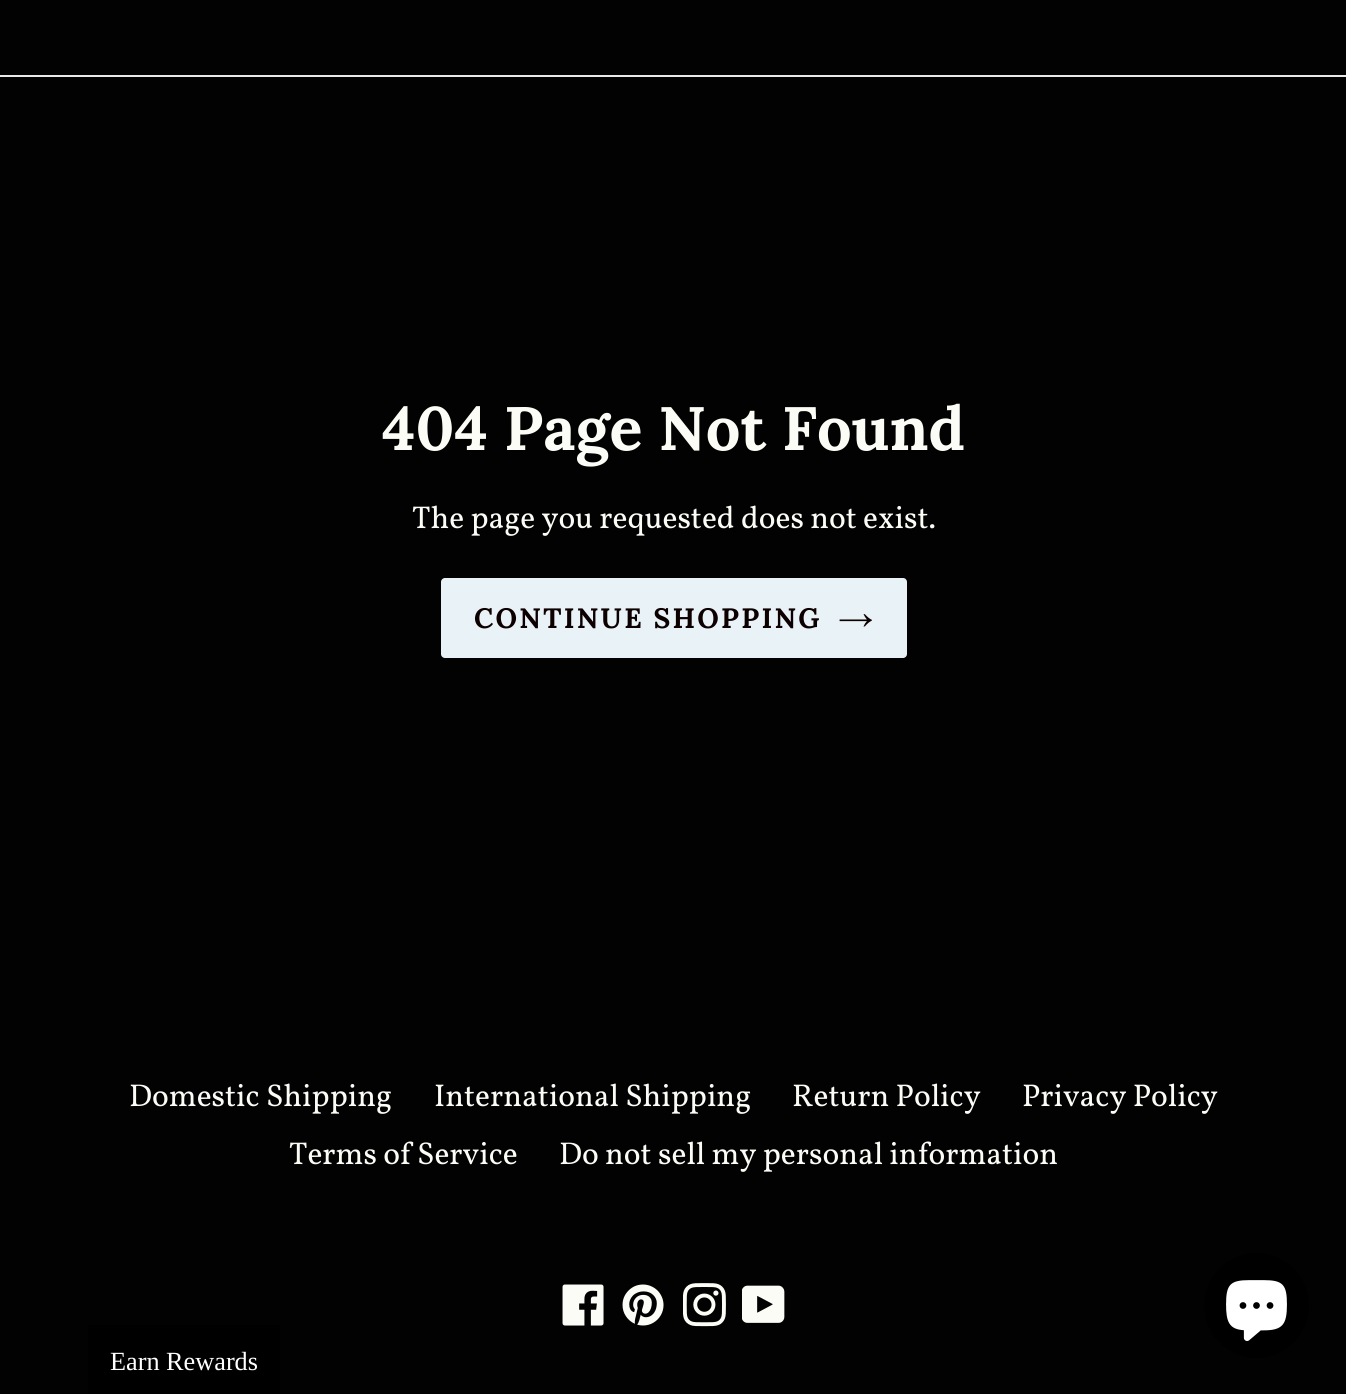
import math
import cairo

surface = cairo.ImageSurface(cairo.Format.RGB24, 1346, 1394)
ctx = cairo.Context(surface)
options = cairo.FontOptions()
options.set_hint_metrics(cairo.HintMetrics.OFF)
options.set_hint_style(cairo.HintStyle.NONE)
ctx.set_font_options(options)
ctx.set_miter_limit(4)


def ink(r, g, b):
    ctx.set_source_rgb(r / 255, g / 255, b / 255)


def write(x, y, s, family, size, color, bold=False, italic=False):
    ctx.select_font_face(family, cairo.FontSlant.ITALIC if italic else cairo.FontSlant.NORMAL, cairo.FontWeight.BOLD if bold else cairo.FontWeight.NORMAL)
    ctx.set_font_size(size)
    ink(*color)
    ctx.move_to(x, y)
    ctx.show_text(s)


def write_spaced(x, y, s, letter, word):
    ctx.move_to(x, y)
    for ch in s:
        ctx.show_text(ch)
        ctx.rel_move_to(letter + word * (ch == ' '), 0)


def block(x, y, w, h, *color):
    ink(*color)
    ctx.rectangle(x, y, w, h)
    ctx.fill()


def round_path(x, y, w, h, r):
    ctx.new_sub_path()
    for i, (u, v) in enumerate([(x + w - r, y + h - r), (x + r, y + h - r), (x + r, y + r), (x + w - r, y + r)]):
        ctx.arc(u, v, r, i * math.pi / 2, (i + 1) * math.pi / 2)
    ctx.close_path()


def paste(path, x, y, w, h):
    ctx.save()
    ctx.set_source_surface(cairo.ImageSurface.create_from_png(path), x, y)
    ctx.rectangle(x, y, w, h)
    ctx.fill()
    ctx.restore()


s1 = dict(family="Lora", size=61.25, color=(252, 252, 247), bold=True)
s2 = dict(family="Vollkorn", size=31.5, color=(252, 252, 247))
s3 = dict(family="Liberation Serif", size=26.25, color=(255, 255, 255))

ink(3, 2, 2)
ctx.paint()
block(0, 75, 1346, 2, 232, 233, 235)
write(382, 450, "404 Page Not Found", **s1)
write(412, 528, "The page you requested does not exist.", **s2)
ink(233, 242, 247)
round_path(441, 578, 466, 80, 4)
ctx.fill()
ctx.select_font_face("Lora", cairo.FontSlant.NORMAL, cairo.FontWeight.BOLD)
ctx.set_font_size(28)
ink(13, 0, 0)
write_spaced(474, 628, "CONTINUE SHOPPING", 2.25, 0)
paste("pic1.png", 839, 614, 33, 13)
write(129, 1106, "Domestic Shipping", **s2)
write(434, 1106, "International Shipping", **s2)
write(792, 1106, "Return Policy", **s2)
write(1022, 1106, "Privacy Policy", **s2)
write(289, 1164, "Terms of Service", **s2)
write(559, 1164, "Do not sell my personal information", **s2)
paste("pic2.png", 562, 1284, 42, 42)
paste("pic3.png", 622, 1284, 42, 42)
paste("pic4.png", 683, 1283, 43, 44)
paste("pic5.png", 742, 1285, 43, 38)
ink(0, 0, 0)
ctx.arc(1256.5, 1305.5, 52.5, 0, 2 * math.pi)
ctx.fill()
paste("pic6.png", 1226, 1280, 61, 61)
block(88, 1325, 192, 69, 0, 0, 0)
write(110, 1370, "Earn Rewards", **s3)
surface.write_to_png("screenshot.png")
